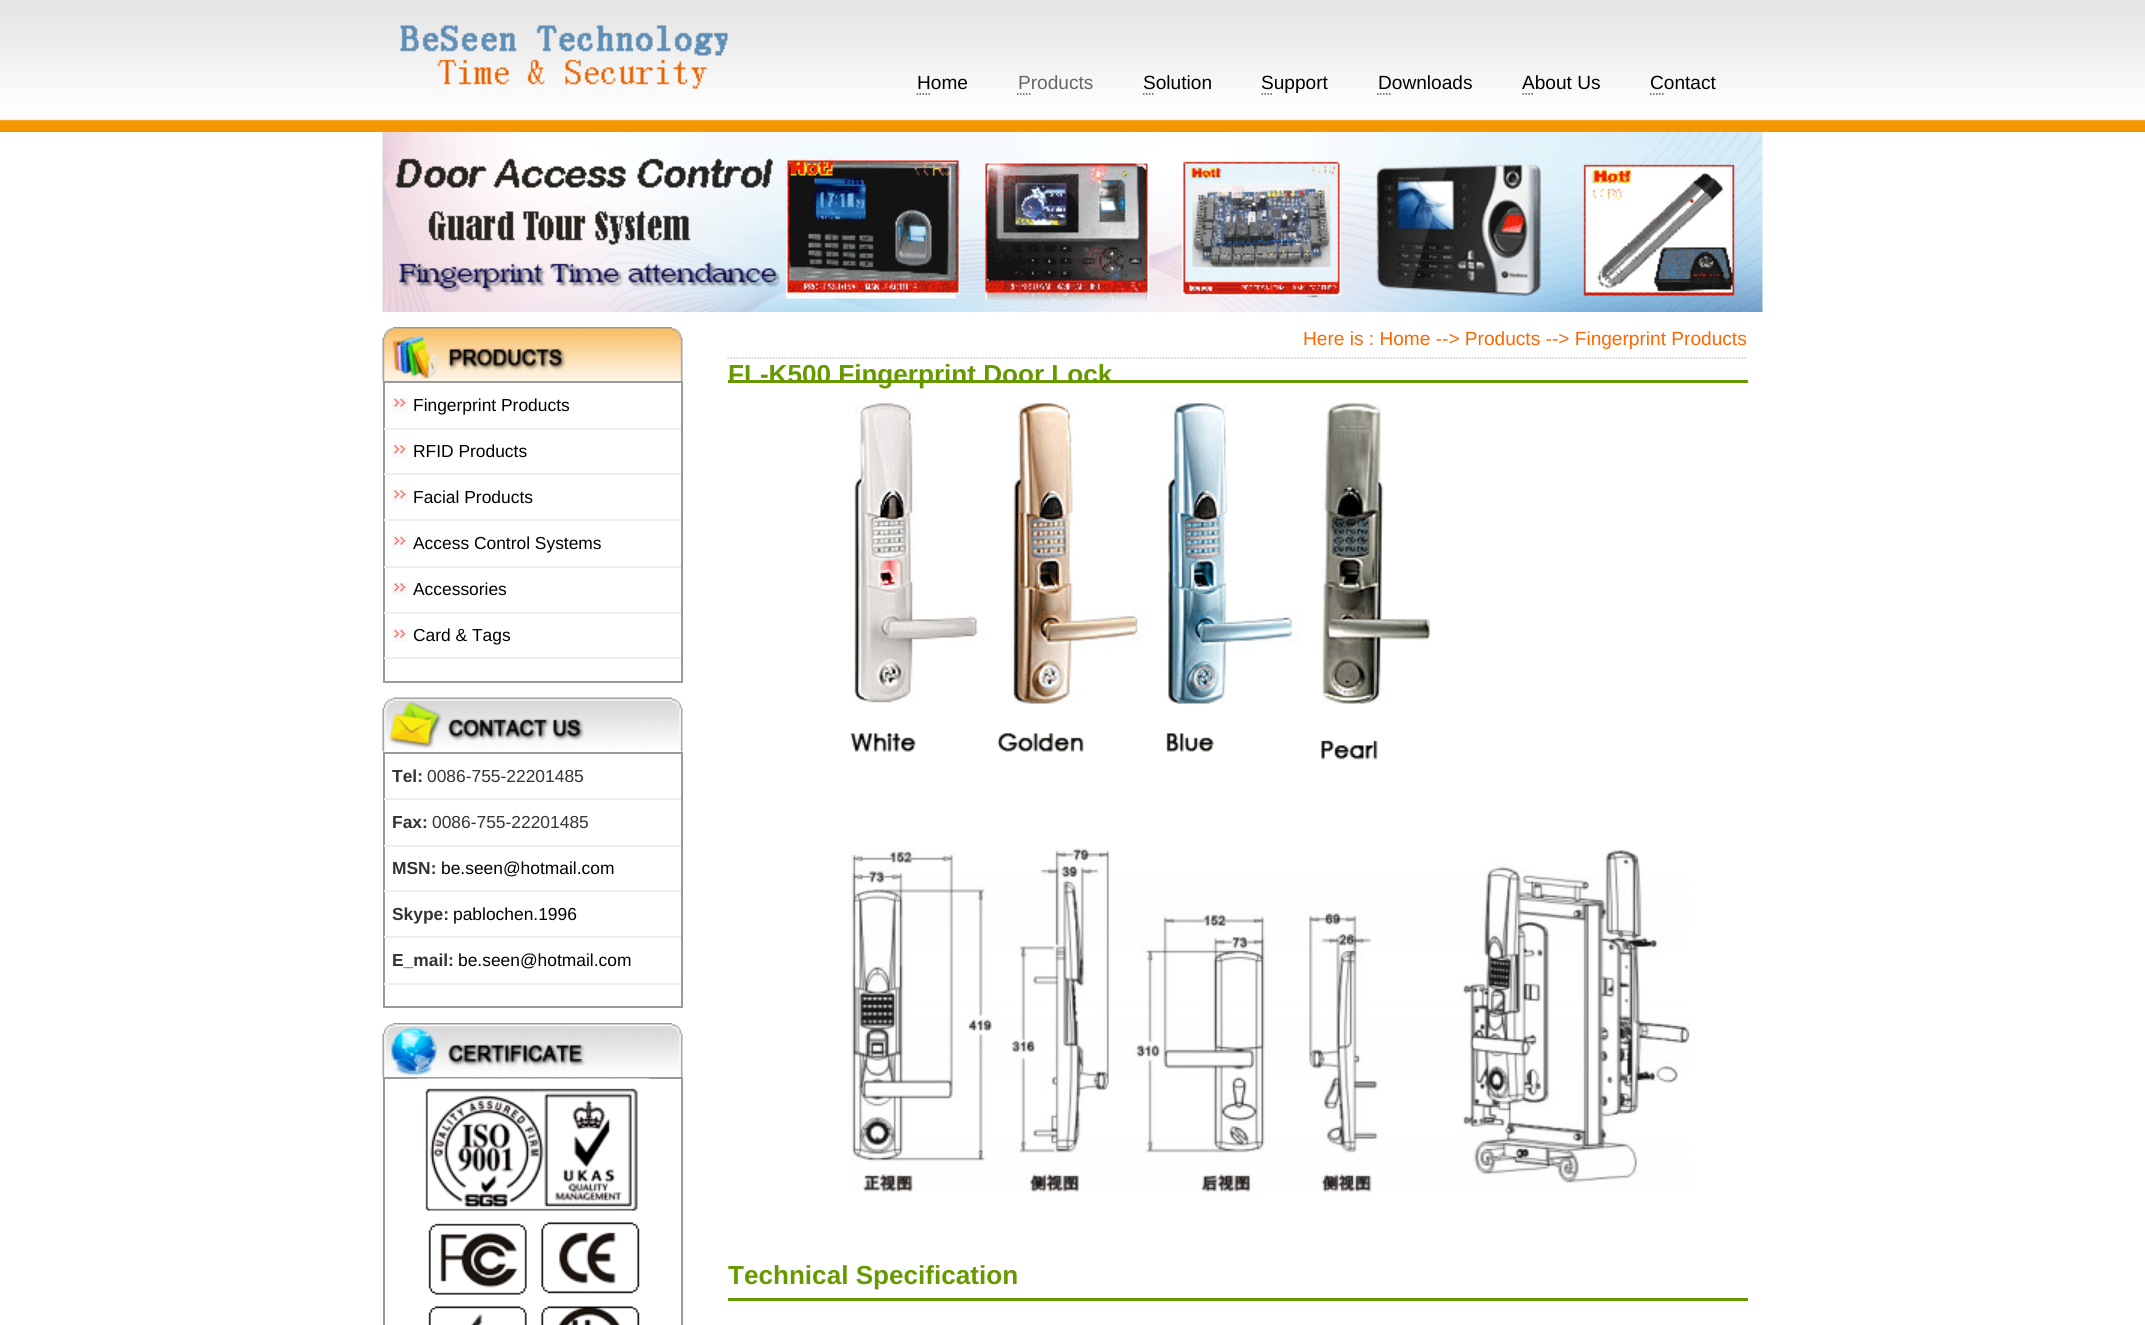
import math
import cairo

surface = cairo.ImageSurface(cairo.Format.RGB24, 2145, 1325)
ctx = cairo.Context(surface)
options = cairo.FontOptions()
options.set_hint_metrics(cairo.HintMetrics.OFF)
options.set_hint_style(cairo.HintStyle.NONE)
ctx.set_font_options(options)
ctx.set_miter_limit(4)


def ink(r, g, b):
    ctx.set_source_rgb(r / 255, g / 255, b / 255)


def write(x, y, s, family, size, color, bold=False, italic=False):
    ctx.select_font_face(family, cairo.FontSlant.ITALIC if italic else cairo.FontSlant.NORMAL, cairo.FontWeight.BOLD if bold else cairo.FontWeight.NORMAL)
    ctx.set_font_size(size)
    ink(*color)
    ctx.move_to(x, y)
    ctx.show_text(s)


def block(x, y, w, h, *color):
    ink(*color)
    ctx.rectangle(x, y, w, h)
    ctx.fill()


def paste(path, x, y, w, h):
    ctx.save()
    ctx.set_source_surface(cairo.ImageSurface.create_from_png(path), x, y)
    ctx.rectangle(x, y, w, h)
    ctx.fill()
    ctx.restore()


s1 = dict(family="Liberation Sans", size=19.1, color=(0, 0, 0))
s2 = dict(family="Liberation Sans", size=19.1, color=(102, 102, 102))
s3 = dict(family="Liberation Sans", size=17.4, color=(0, 0, 0))
s4 = dict(family="Liberation Sans", size=17.4, color=(51, 51, 51), bold=True)
s5 = dict(family="Liberation Sans", size=17.4, color=(51, 51, 51))
s6 = dict(family="Liberation Sans", size=19.1, color=(255, 102, 0))
s7 = dict(family="Liberation Sans", size=26.1, color=(102, 153, 0), bold=True)

ink(255, 255, 255)
ctx.paint()
paste("pic1.png", 0, 0, 2145, 132)
paste("pic2.png", 400, 25, 328, 64)
write(917, 89, "Home", **s1)
ctx.new_path()
ctx.move_to(916.5, 94)
ctx.line_to(931.5, 94)
ink(75, 87, 97)
ctx.set_line_width(1.5)
ctx.set_dash([1.5, 1.5])
ctx.stroke()
write(1018, 89, "Products", **s2)
ctx.new_path()
ctx.move_to(1017, 94)
ctx.line_to(1030.5, 94)
ink(75, 87, 97)
ctx.stroke()
write(1143, 89, "Solution", **s1)
ctx.new_path()
ctx.move_to(1143, 94)
ctx.line_to(1155, 94)
ink(75, 87, 97)
ctx.stroke()
write(1261, 89, "Support", **s1)
ctx.new_path()
ctx.move_to(1261.5, 94)
ctx.line_to(1273.5, 94)
ink(75, 87, 97)
ctx.stroke()
write(1378, 89, "Downloads", **s1)
ctx.new_path()
ctx.move_to(1377, 94)
ctx.line_to(1392, 94)
ink(75, 87, 97)
ctx.stroke()
write(1522, 89, "About Us", **s1)
ctx.new_path()
ctx.move_to(1522.5, 94)
ctx.line_to(1534.5, 94)
ink(75, 87, 97)
ctx.stroke()
write(1650, 89, "Contact", **s1)
ctx.new_path()
ctx.move_to(1650, 94)
ctx.line_to(1663.5, 94)
ink(75, 87, 97)
ctx.stroke()
paste("pic3.png", 382, 132, 1381, 180)
paste("pic4.png", 382, 327, 301, 54)
ctx.rectangle(384, 382, 298, 300)
ink(153, 153, 153)
ctx.set_line_width(2)
ctx.set_dash([])
ctx.stroke()
block(384, 428, 297, 2, 238, 238, 238)
paste("pic5.png", 391, 397, 17, 14)
write(413, 411, "Fingerprint Products", **s3)
block(384, 473, 297, 2, 238, 238, 238)
paste("pic6.png", 391, 444, 17, 13)
write(413, 457, "RFID Products", **s3)
block(384, 519, 297, 2, 238, 238, 238)
paste("pic6.png", 391, 489, 17, 13)
write(413, 503, "Facial Products", **s3)
block(384, 566, 297, 2, 238, 238, 238)
paste("pic5.png", 391, 535, 17, 14)
write(413, 549, "Access Control Systems", **s3)
block(384, 612, 297, 2, 238, 238, 238)
paste("pic6.png", 391, 582, 17, 13)
write(413, 595, "Accessories", **s3)
block(384, 657, 297, 2, 238, 238, 238)
paste("pic5.png", 391, 628, 17, 14)
write(413, 641, "Card & Tags", **s3)
paste("pic7.png", 382, 697, 301, 55)
ctx.rectangle(384, 753, 298, 254)
ink(153, 153, 153)
ctx.stroke()
block(384, 798, 297, 2, 238, 238, 238)
write(392, 782, "Tel:", **s4)
write(427, 782, "0086-755-22201485", **s5)
block(384, 845, 297, 2, 238, 238, 238)
write(392, 828, "Fax:", **s4)
write(432, 828, "0086-755-22201485", **s5)
block(384, 890, 297, 2, 238, 238, 238)
write(392, 874, "MSN:", **s4)
write(441, 874, "be.seen@hotmail.com", **s3)
block(384, 936, 297, 2, 238, 238, 238)
write(392, 920, "Skype:", **s4)
write(453, 920, "pablochen.1996", **s3)
block(384, 983, 297, 2, 238, 238, 238)
write(392, 966, "E_mail:", **s4)
write(458, 966, "be.seen@hotmail.com", **s3)
paste("pic8.png", 382, 1023, 301, 54)
ctx.rectangle(384, 1078, 298, 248)
ink(153, 153, 153)
ctx.stroke()
paste("pic9.png", 417, 1078, 233, 247)
ctx.new_path()
ctx.move_to(727.5, 358)
ctx.line_to(1747.5, 358)
ink(204, 204, 204)
ctx.set_line_width(1.5)
ctx.set_dash([1.5, 1.5])
ctx.stroke()
write(1303, 345, "Here is : Home --> Products --> Fingerprint Products", **s6)
block(728, 380, 1020, 3, 102, 153, 0)
write(728, 383, "FL-K500 Fingerprint Door Lock", **s7)
paste("pic10.png", 850, 403, 580, 357)
paste("pic11.png", 851, 848, 839, 345)
block(728, 1298, 1020, 3, 102, 153, 0)
write(728, 1284, "Technical Specification", **s7)
surface.write_to_png("screenshot.png")
